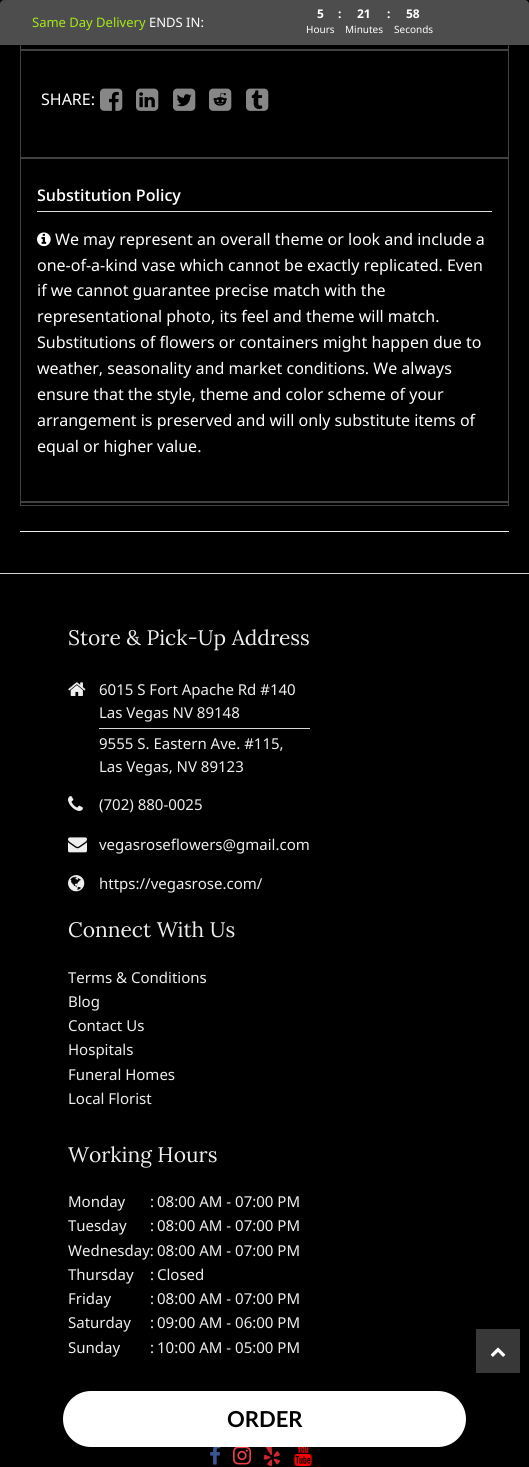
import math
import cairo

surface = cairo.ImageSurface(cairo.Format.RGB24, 529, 1467)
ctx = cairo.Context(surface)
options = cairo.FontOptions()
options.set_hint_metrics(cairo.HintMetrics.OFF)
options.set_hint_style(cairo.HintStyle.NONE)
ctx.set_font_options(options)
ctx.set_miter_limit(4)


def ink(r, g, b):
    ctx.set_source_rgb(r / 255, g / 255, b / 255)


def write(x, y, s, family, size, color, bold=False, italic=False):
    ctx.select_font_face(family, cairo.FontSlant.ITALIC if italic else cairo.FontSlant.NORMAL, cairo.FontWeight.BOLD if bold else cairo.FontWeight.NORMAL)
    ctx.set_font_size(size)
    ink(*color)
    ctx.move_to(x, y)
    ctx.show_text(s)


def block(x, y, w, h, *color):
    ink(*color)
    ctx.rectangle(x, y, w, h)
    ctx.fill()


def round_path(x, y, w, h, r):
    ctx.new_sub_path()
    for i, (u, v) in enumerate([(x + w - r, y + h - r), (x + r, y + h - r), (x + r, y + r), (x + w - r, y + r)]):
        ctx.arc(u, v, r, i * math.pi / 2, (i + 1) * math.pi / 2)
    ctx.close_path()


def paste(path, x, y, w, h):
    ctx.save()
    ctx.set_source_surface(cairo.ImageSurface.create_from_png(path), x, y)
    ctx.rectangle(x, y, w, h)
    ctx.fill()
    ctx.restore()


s1 = dict(family="Noto Sans", size=13, color=(164, 232, 24))
s2 = dict(family="Noto Sans", size=13, color=(255, 255, 255))
s3 = dict(family="Noto Sans", size=12, color=(255, 255, 255), bold=True)
s4 = dict(family="Noto Sans", size=10, color=(255, 255, 255))
s5 = dict(family="Noto Sans", size=16, color=(255, 255, 255))
s6 = dict(family="Lato", size=22, color=(0, 0, 0), bold=True)
s7 = dict(family="Open Sans SemiBold", size=16, color=(255, 255, 255))
s8 = dict(family="Lora", size=21, color=(238, 238, 238))
s9 = dict(family="Noto Sans", size=15, color=(238, 238, 238))

ink(0, 0, 0)
ctx.paint()
ctx.rectangle(20.5, -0.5, 488, 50)
ink(65, 65, 65)
ctx.set_line_width(1)
ctx.stroke()
ink(77, 77, 77)
ctx.new_path()
ctx.move_to(4, 0)
ctx.line_to(525, 0)
ctx.curve_to(527, 0, 529, 2, 529, 4)
ctx.line_to(529, 45)
ctx.line_to(0, 45)
ctx.line_to(0, 4)
ctx.curve_to(0, 2, 2, 0, 4, 0)
ctx.close_path()
ctx.fill()
write(32, 27, "Same Day Delivery", **s1)
write(149, 27, "ENDS IN:", **s2)
write(317, 18, "5", **s3)
write(306, 33, "Hours", **s4)
write(338, 18, ":", **s3)
write(357, 18, "21", **s3)
write(345, 33, "Minutes", **s4)
write(387, 18, ":", **s3)
write(406, 18, "58", **s3)
write(394, 33, "Seconds", **s4)
ctx.rectangle(20.5, 50.5, 488, 107)
ink(65, 65, 65)
ctx.stroke()
write(41, 105, "SHARE:", **s5)
paste("pic1.png", 100, 88, 23, 23)
paste("pic2.png", 136, 88, 23, 23)
paste("pic3.png", 173, 88, 23, 23)
paste("pic4.png", 209, 88, 23, 23)
paste("pic5.png", 246, 88, 23, 23)
round_path(63, 1391, 403, 56, 28)
ctx.fill()
write(227, 1427, "ORDER", **s6)
ctx.rectangle(20.5, 158.5, 488, 343)
ink(65, 65, 65)
ctx.stroke()
block(37, 211, 455, 1, 220, 220, 220)
write(37, 201, "Substitution Policy", **s7)
paste("pic6.png", 37, 232, 14, 15)
write(55, 245, "We may represent an overall theme or look and include a", **s5)
write(37, 271, "one-of-a-kind vase which cannot be exactly replicated. Even", **s5)
write(37, 296, "if we cannot guarantee precise match with the", **s5)
write(37, 322, "representational photo, its feel and theme will match.", **s5)
write(37, 348, "Substitutions of flowers or containers might happen due to", **s5)
write(37, 374, "weather, seasonality and market conditions. We always", **s5)
write(37, 400, "ensure that the style, theme and color scheme of your", **s5)
write(37, 426, "arrangement is preserved and will only substitute items of", **s5)
write(37, 452, "equal or higher value.", **s5)
ctx.rectangle(20.5, 502.5, 488, 3)
ink(65, 65, 65)
ctx.stroke()
block(20, 531, 489, 1, 238, 238, 238)
block(0, 573, 529, 1, 212, 212, 212)
write(68, 645, "Store & Pick-Up Address", **s8)
paste("pic7.png", 68, 682, 18, 14)
write(99, 695, "6015 S Fort Apache Rd #140", **s9)
write(99, 718, "Las Vegas NV 89148", **s9)
block(99, 728, 211, 1, 216, 216, 216)
write(99, 749, "9555 S. Eastern Ave. #115,", **s9)
write(99, 772, "Las Vegas, NV 89123", **s9)
paste("pic8.png", 68, 796, 15, 15)
write(99, 810, "(702) 880-0025", **s9)
paste("pic9.png", 68, 837, 19, 16)
write(99, 850, "vegasroseflowers@gmail.com", **s9)
paste("pic10.png", 68, 875, 17, 17)
write(99, 889, "https://vegasrose.com/", **s9)
write(68, 937, "Connect With Us", **s8)
write(68, 983, "Terms & Conditions", **s9)
write(68, 1007, "Blog", **s9)
write(68, 1031, "Contact Us", **s9)
write(68, 1055, "Hospitals", **s9)
write(68, 1080, "Funeral Homes", **s9)
write(68, 1104, "Local Florist", **s9)
write(68, 1162, "Working Hours", **s8)
write(68, 1207, "Monday", **s9)
write(150, 1207, ":", **s9)
write(157, 1207, "08:00 AM - 07:00 PM", **s9)
write(68, 1231, "Tuesday", **s9)
write(150, 1231, ":", **s9)
write(157, 1231, "08:00 AM - 07:00 PM", **s9)
write(68, 1256, "Wednesday:", **s9)
write(157, 1256, "08:00 AM - 07:00 PM", **s9)
write(68, 1280, "Thursday", **s9)
write(150, 1280, ":", **s9)
write(157, 1280, "Closed", **s9)
write(68, 1304, "Friday", **s9)
write(150, 1304, ":", **s9)
write(157, 1304, "08:00 AM - 07:00 PM", **s9)
write(68, 1328, "Saturday", **s9)
write(150, 1328, ":", **s9)
write(157, 1328, "09:00 AM - 06:00 PM", **s9)
write(68, 1353, "Sunday", **s9)
write(150, 1353, ":", **s9)
write(157, 1353, "10:00 AM - 05:00 PM", **s9)
paste("pic11.png", 210, 1447, 11, 18)
paste("pic12.png", 233, 1447, 18, 18)
paste("pic13.png", 264, 1447, 16, 19)
paste("pic14.png", 294, 1447, 18, 19)
block(476, 1329, 44, 44, 56, 56, 56)
paste("pic15.png", 490, 1347, 16, 10)
surface.write_to_png("screenshot.png")
